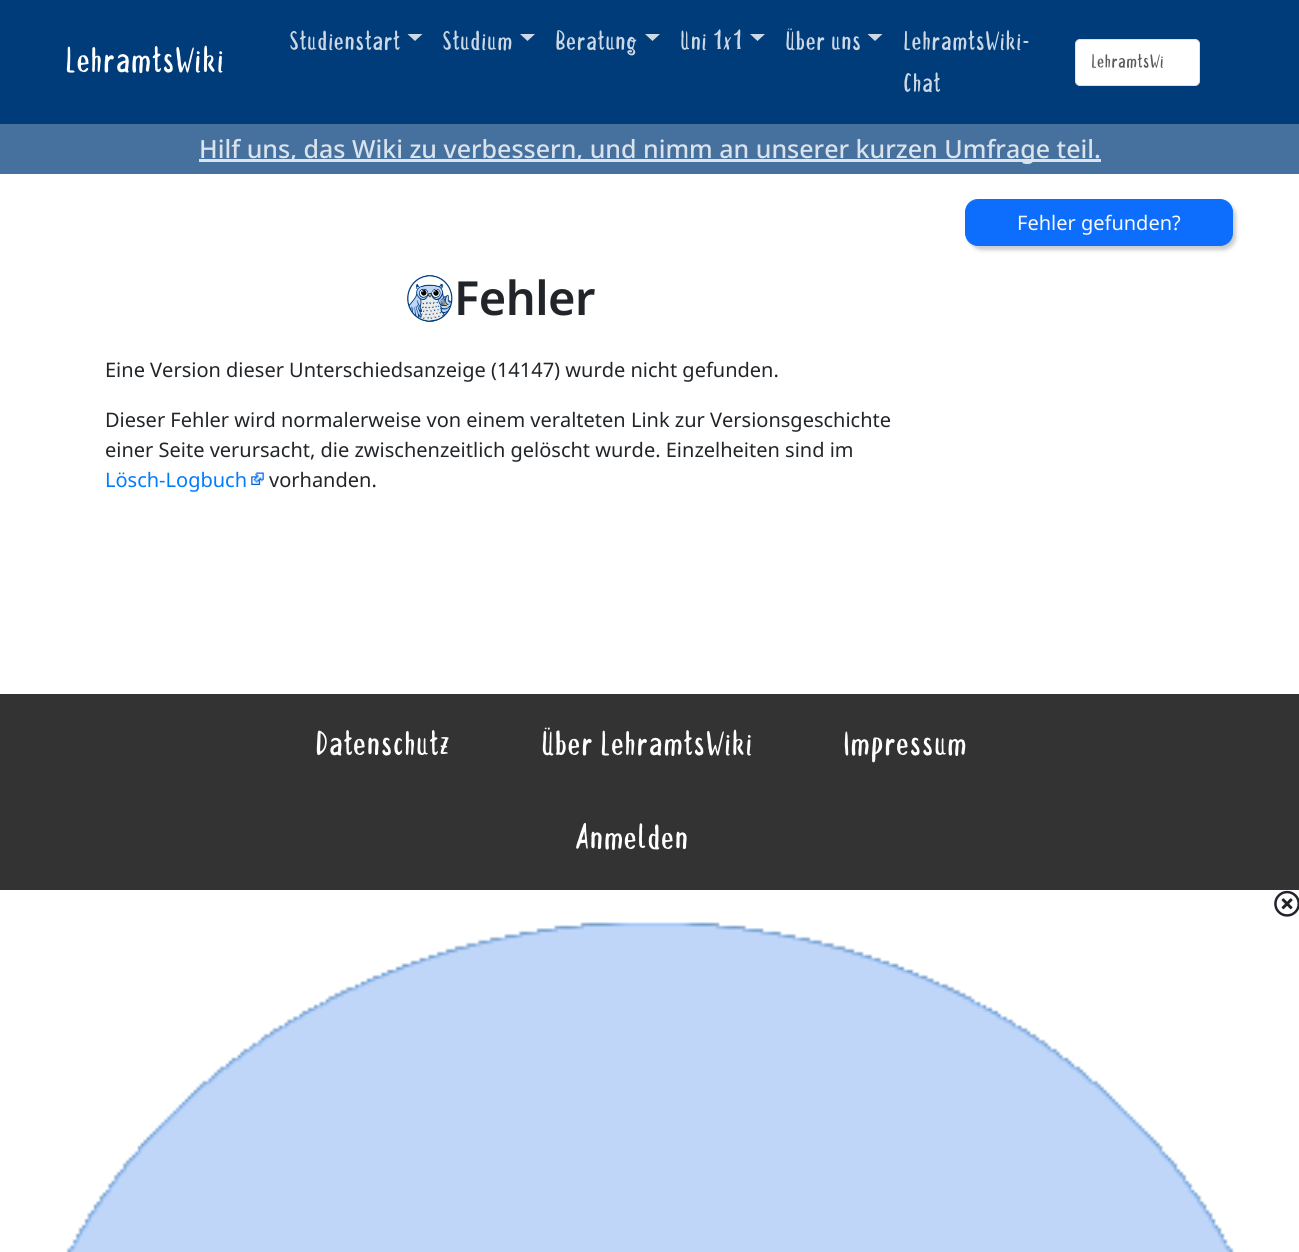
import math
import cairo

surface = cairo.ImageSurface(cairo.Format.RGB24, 1299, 1252)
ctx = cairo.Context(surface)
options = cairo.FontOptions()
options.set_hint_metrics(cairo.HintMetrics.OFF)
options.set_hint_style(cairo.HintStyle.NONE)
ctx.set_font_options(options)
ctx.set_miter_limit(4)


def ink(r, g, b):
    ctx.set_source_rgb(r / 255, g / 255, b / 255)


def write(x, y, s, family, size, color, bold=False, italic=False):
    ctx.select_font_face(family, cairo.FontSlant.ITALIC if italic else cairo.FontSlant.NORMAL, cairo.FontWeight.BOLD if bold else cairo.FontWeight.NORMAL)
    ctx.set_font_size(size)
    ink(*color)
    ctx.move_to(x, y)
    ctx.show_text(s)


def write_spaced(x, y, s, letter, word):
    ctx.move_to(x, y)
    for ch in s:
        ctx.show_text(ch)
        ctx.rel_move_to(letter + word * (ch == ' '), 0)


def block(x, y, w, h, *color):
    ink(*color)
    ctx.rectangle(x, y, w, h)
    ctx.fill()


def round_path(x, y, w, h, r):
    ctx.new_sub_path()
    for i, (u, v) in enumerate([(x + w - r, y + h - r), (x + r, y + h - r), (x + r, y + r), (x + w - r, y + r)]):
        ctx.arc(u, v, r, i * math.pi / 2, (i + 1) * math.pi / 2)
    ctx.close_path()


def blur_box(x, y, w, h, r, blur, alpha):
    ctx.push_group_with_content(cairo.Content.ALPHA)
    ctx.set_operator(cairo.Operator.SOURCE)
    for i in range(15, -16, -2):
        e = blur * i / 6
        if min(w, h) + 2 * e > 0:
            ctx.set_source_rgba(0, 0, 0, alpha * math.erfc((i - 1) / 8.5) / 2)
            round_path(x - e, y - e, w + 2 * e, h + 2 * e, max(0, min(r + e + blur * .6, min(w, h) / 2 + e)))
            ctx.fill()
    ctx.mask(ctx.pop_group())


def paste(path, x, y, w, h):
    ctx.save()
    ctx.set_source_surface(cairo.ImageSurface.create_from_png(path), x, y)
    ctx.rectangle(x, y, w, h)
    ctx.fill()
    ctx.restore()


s1 = dict(family="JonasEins", size=37.5, color=(255, 255, 255))
s2 = dict(family="JonasEins", size=28, color=(204, 216, 228))
s3 = dict(family="JonasEins", size=20, color=(89, 92, 95))
s4 = dict(family="Noto Sans Medium", size=25, color=(218, 227, 236))
s5 = dict(family="Noto Sans", size=20, color=(248, 249, 250))
s6 = dict(family="Noto Sans", size=20, color=(33, 37, 41))
s7 = dict(family="Noto Sans", size=20, color=(0, 123, 255))
s8 = dict(family="JonasEins", size=36, color=(255, 255, 255))

ink(255, 255, 255)
ctx.paint()
block(0, 0, 1299, 124, 0, 59, 122)
write(65, 71, "LehramtsWiki", **s1)
write(289, 49, "Studienstart", **s2)
ctx.new_path()
ctx.move_to(407.5, 34)
ctx.line_to(422.5, 34)
ctx.line_to(415, 41)
ctx.close_path()
ctx.fill()
write(442, 49, "Studium", **s2)
ctx.new_path()
ctx.move_to(520, 34)
ctx.line_to(535, 34)
ctx.line_to(527.5, 41)
ctx.close_path()
ctx.fill()
write(555, 49, "Beratung", **s2)
ctx.new_path()
ctx.move_to(645, 34)
ctx.line_to(660, 34)
ctx.line_to(652.5, 41)
ctx.close_path()
ctx.fill()
write(680, 49, "Uni 1x1", **s2)
ctx.new_path()
ctx.move_to(750, 34)
ctx.line_to(765, 34)
ctx.line_to(757.5, 41)
ctx.close_path()
ctx.fill()
write(785, 49, "Über uns", **s2)
ctx.new_path()
ctx.move_to(867.5, 34)
ctx.line_to(882.5, 34)
ctx.line_to(875, 41)
ctx.close_path()
ctx.fill()
write(903, 49, "LehramtsWiki-", **s2)
write(903, 91, "Chat", **s2)
ink(255, 255, 255)
round_path(1075.5, 39.5, 124, 46, 4.5)
ctx.fill_preserve()
ink(222, 226, 230)
ctx.set_line_width(1)
ctx.stroke()
write(1091, 67, "LehramtsWi", **s3)
block(0, 124, 1299, 50, 70, 113, 159)
block(199, 159, 902, 3, 218, 227, 236)
write(199, 158, "Hilf uns, das Wiki zu verbessern, und nimm an unserer kurzen Umfrage teil.", **s4)
ink(196, 196, 196)
blur_box(969, 203, 267, 47, 13, 2, 0.9)
ink(13, 110, 253)
round_path(965.5, 199.5, 267, 46, 12.5)
ctx.fill_preserve()
ctx.stroke()
write(1017, 230, "Fehler gefunden?", **s5)
paste("pic1.png", 407, 275, 46, 47)
ctx.select_font_face("Noto Sans SemiBold")
ctx.set_font_size(47)
ink(33, 37, 41)
write_spaced(454, 315, "Fehler", -0.5, 0)
write(105, 377, "Eine Version dieser Unterschiedsanzeige (14147) wurde nicht gefunden.", **s6)
write(105, 427, "Dieser Fehler wird normalerweise von einem veralteten Link zur Versionsgeschichte", **s6)
write(105, 457, "einer Seite verursacht, die zwischenzeitlich gelöscht wurde. Einzelheiten sind im", **s6)
write(105, 487, "Lösch-Logbuch", **s7)
paste("pic2.png", 251, 472, 13, 13)
write(269, 487, "vorhanden.", **s6)
block(0, 694, 1299, 196, 51, 51, 51)
write(315, 754, "Datenschutz", **s8)
write(541, 754, "Über LehramtsWiki", **s8)
write(843, 754, "Impressum", **s8)
write(575, 848, "Anmelden", **s8)
paste("pic3.png", 1274, 890, 25, 27)
paste("pic4.png", 66, 922, 1168, 330)
surface.write_to_png("screenshot.png")
